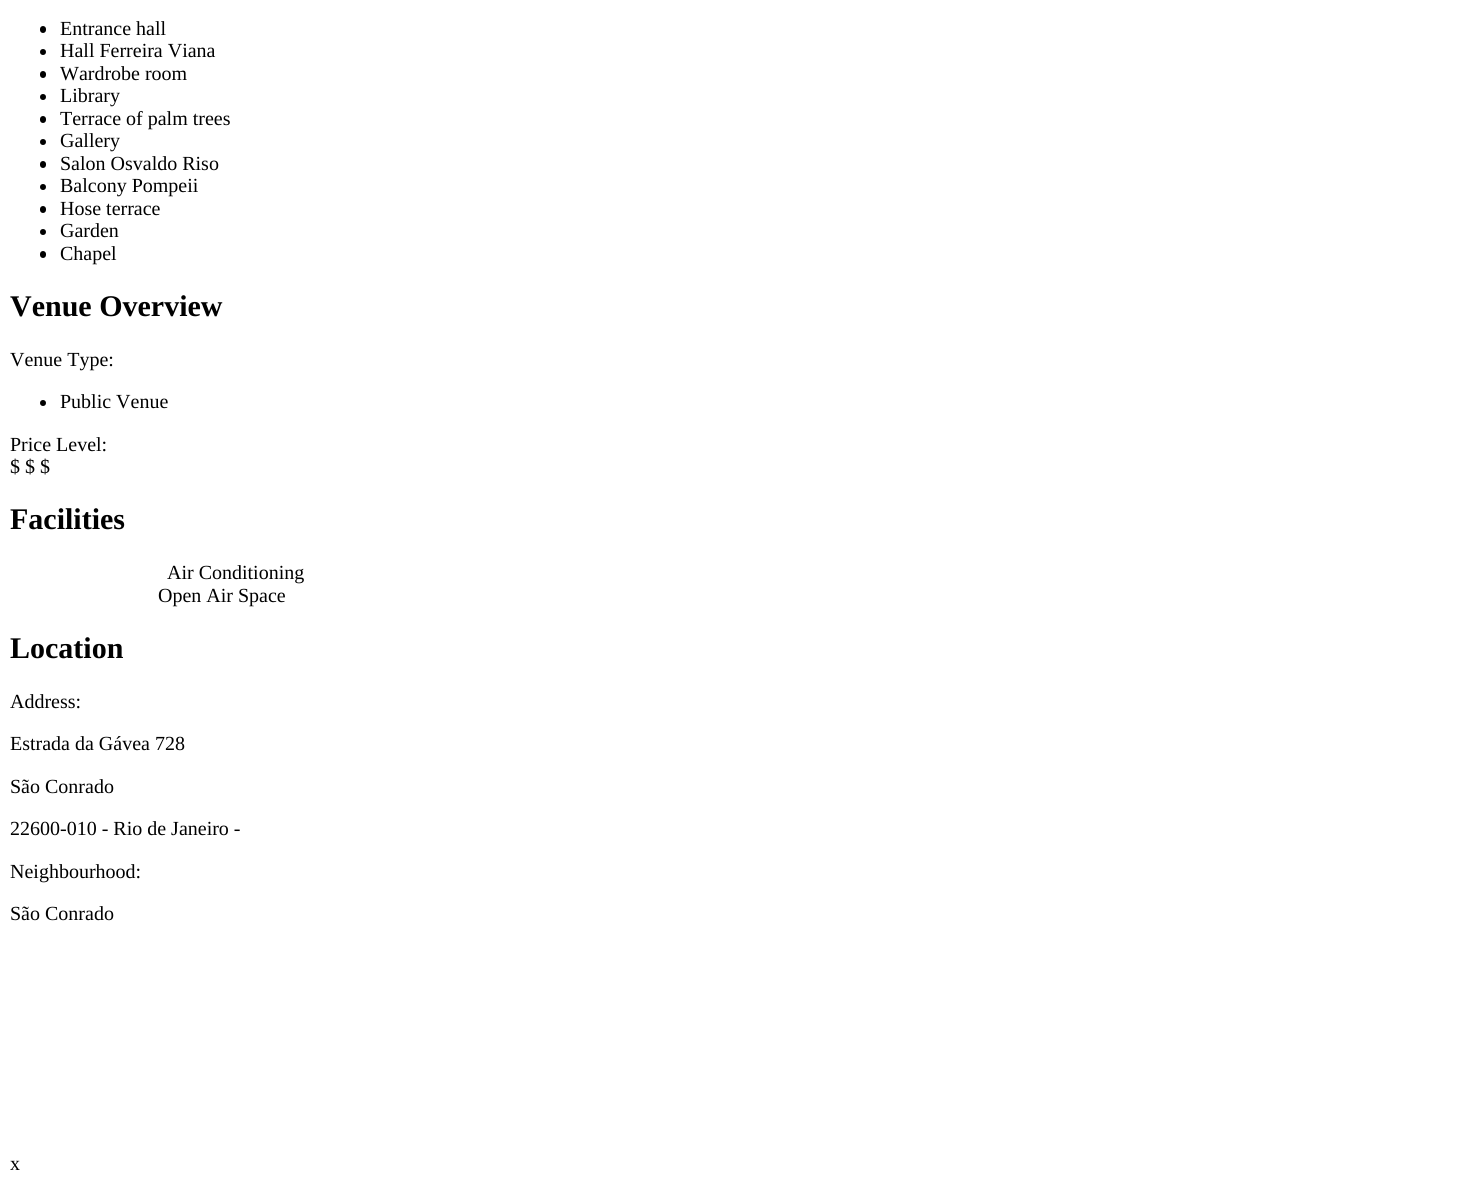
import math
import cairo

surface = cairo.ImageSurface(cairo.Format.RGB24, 1457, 1199)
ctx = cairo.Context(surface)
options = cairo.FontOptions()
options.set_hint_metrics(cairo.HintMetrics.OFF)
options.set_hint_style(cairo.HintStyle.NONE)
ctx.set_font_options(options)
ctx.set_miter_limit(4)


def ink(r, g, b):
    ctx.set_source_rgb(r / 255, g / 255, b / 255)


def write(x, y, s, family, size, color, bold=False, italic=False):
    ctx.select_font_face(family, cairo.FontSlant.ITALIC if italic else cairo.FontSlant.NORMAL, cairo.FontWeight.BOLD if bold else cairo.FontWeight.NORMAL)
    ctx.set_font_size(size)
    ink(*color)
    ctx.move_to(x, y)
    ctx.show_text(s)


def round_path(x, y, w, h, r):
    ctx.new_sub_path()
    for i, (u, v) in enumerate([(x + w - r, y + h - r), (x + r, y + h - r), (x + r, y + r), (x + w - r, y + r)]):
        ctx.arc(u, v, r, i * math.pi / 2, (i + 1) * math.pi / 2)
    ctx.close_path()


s1 = dict(family="Liberation Serif", size=20, color=(0, 0, 0))
s2 = dict(family="Liberation Serif", size=30, color=(0, 0, 0), bold=True)

ink(255, 255, 255)
ctx.paint()
ink(0, 0, 0)
round_path(40, 26, 6, 7, 3)
ctx.fill()
write(60, 35, "Entrance hall", **s1)
ctx.new_path()
ctx.arc(43, 52, 3, 0, 2 * math.pi)
ctx.fill()
write(60, 57, "Hall Ferreira Viana", **s1)
round_path(40, 71, 6, 7, 3)
ctx.fill()
write(60, 80, "Wardrobe room", **s1)
ctx.new_path()
ctx.arc(43, 97, 3, 0, 2 * math.pi)
ctx.fill()
write(60, 102, "Library", **s1)
round_path(40, 116, 6, 7, 3)
ctx.fill()
write(60, 125, "Terrace of palm trees", **s1)
ctx.new_path()
ctx.arc(43, 142, 3, 0, 2 * math.pi)
ctx.fill()
write(60, 147, "Gallery", **s1)
round_path(40, 161, 6, 7, 3)
ctx.fill()
write(60, 170, "Salon Osvaldo Riso", **s1)
ctx.new_path()
ctx.arc(43, 187, 3, 0, 2 * math.pi)
ctx.fill()
write(60, 192, "Balcony Pompeii", **s1)
round_path(40, 206, 6, 7, 3)
ctx.fill()
write(60, 215, "Hose terrace", **s1)
ctx.new_path()
ctx.arc(43, 232, 3, 0, 2 * math.pi)
ctx.fill()
write(60, 237, "Garden", **s1)
round_path(40, 251, 6, 7, 3)
ctx.fill()
write(60, 260, "Chapel", **s1)
write(10, 316, "Venue Overview", **s2)
write(10, 366, "Venue Type:", **s1)
ctx.new_path()
ctx.arc(43, 403, 3, 0, 2 * math.pi)
ctx.fill()
write(60, 408, "Public Venue", **s1)
write(10, 451, "Price Level:", **s1)
write(10, 473, "$ $ $", **s1)
write(10, 529, "Facilities", **s2)
write(167, 579, "Air Conditioning", **s1)
write(158, 602, "Open Air Space", **s1)
write(10, 658, "Location", **s2)
write(10, 708, "Address:", **s1)
write(10, 750, "Estrada da Gávea 728", **s1)
write(10, 793, "São Conrado", **s1)
write(10, 835, "22600-010 - Rio de Janeiro -", **s1)
write(10, 878, "Neighbourhood:", **s1)
write(10, 920, "São Conrado", **s1)
write(10, 1170, "x", **s1)
surface.write_to_png("screenshot.png")
